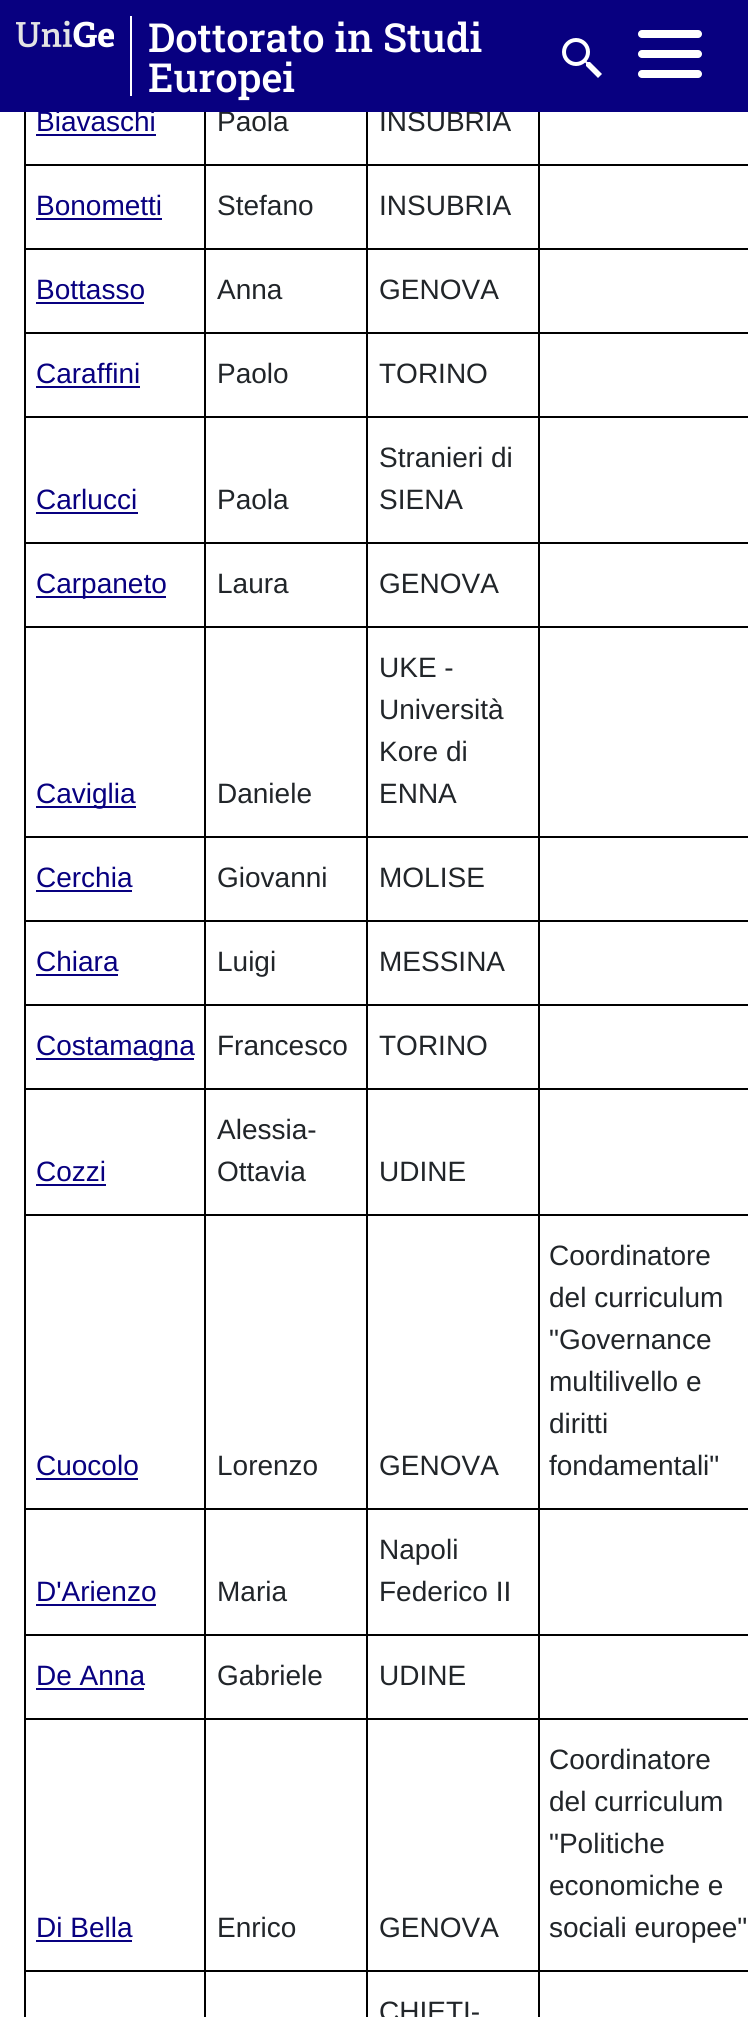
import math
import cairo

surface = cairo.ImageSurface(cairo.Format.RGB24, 748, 2017)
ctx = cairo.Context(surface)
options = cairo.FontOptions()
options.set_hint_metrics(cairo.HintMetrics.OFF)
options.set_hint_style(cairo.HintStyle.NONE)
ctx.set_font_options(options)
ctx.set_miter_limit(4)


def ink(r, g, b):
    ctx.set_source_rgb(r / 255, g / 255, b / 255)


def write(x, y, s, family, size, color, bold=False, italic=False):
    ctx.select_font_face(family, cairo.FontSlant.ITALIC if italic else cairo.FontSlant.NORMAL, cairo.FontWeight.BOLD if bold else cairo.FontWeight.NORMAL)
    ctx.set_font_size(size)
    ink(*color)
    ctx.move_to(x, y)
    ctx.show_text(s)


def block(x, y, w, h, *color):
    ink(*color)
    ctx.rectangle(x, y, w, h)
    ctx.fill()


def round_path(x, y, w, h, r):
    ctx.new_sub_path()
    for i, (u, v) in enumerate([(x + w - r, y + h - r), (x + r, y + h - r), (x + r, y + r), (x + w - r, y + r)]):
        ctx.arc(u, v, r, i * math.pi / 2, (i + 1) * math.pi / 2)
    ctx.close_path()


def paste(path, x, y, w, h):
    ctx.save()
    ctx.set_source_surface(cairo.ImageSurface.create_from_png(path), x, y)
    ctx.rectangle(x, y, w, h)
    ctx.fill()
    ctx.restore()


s1 = dict(family="Liberation Sans", size=28, color=(33, 37, 41))
s2 = dict(family="Roboto Slab Medium", size=40, color=(255, 255, 255))
s3 = dict(family="Liberation Sans", size=28, color=(8, 0, 128))

ink(255, 255, 255)
ctx.paint()
write(217, 131, "Paola", **s1)
write(379, 131, "INSUBRIA", **s1)
block(0, 0, 748, 112, 8, 0, 128)
paste("pic1.png", 16, 20, 98, 28)
block(130, 16, 2, 80, 255, 255, 255)
write(148, 52, "Dottorato in Studi", **s2)
write(148, 92, "Europei", **s2)
paste("pic2.png", 562, 38, 40, 40)
round_path(638, 30, 64, 8, 4)
ctx.fill()
round_path(638, 50, 64, 8, 4)
ctx.fill()
round_path(638, 70, 64, 8, 4)
ctx.fill()
write(36, 131, "Biavaschi", **s3)
block(36, 134, 120, 2, 8, 0, 128)
block(538, 164, 210, 2, 0, 0, 0)
block(538, 248, 210, 2, 0, 0, 0)
block(538, 332, 210, 2, 0, 0, 0)
block(538, 416, 210, 2, 0, 0, 0)
block(538, 542, 210, 2, 0, 0, 0)
block(538, 626, 210, 2, 0, 0, 0)
block(538, 836, 210, 2, 0, 0, 0)
block(538, 920, 210, 2, 0, 0, 0)
block(538, 1004, 210, 2, 0, 0, 0)
block(538, 1088, 210, 2, 0, 0, 0)
block(538, 1214, 210, 2, 0, 0, 0)
block(538, 1508, 210, 2, 0, 0, 0)
block(538, 1634, 210, 2, 0, 0, 0)
block(538, 1718, 210, 2, 0, 0, 0)
block(538, 1970, 210, 2, 0, 0, 0)
block(538, 1970, 2, 47, 0, 0, 0)
block(366, 1970, 174, 2, 0, 0, 0)
block(538, 1718, 2, 254, 0, 0, 0)
block(366, 1718, 174, 2, 0, 0, 0)
block(538, 1634, 2, 86, 0, 0, 0)
block(366, 1634, 174, 2, 0, 0, 0)
block(538, 1508, 2, 128, 0, 0, 0)
block(366, 1508, 174, 2, 0, 0, 0)
block(538, 1214, 2, 296, 0, 0, 0)
block(366, 1214, 174, 2, 0, 0, 0)
block(538, 1088, 2, 128, 0, 0, 0)
block(366, 1088, 174, 2, 0, 0, 0)
block(538, 1004, 2, 86, 0, 0, 0)
block(366, 1004, 174, 2, 0, 0, 0)
block(538, 920, 2, 86, 0, 0, 0)
block(366, 920, 174, 2, 0, 0, 0)
block(538, 836, 2, 86, 0, 0, 0)
block(366, 836, 174, 2, 0, 0, 0)
block(538, 626, 2, 212, 0, 0, 0)
block(366, 626, 174, 2, 0, 0, 0)
block(538, 542, 2, 86, 0, 0, 0)
block(366, 542, 174, 2, 0, 0, 0)
block(538, 416, 2, 128, 0, 0, 0)
block(366, 416, 174, 2, 0, 0, 0)
block(538, 332, 2, 86, 0, 0, 0)
block(366, 332, 174, 2, 0, 0, 0)
block(538, 248, 2, 86, 0, 0, 0)
block(366, 248, 174, 2, 0, 0, 0)
block(538, 164, 2, 86, 0, 0, 0)
block(366, 164, 174, 2, 0, 0, 0)
block(366, 1970, 2, 47, 0, 0, 0)
block(204, 1970, 164, 2, 0, 0, 0)
block(366, 1718, 2, 254, 0, 0, 0)
block(204, 1718, 164, 2, 0, 0, 0)
block(366, 1634, 2, 86, 0, 0, 0)
block(204, 1634, 164, 2, 0, 0, 0)
block(366, 1508, 2, 128, 0, 0, 0)
block(204, 1508, 164, 2, 0, 0, 0)
block(366, 1214, 2, 296, 0, 0, 0)
block(204, 1214, 164, 2, 0, 0, 0)
block(366, 1088, 2, 128, 0, 0, 0)
block(204, 1088, 164, 2, 0, 0, 0)
block(366, 1004, 2, 86, 0, 0, 0)
block(204, 1004, 164, 2, 0, 0, 0)
block(366, 920, 2, 86, 0, 0, 0)
block(204, 920, 164, 2, 0, 0, 0)
block(366, 836, 2, 86, 0, 0, 0)
block(204, 836, 164, 2, 0, 0, 0)
block(366, 626, 2, 212, 0, 0, 0)
block(204, 626, 164, 2, 0, 0, 0)
block(366, 542, 2, 86, 0, 0, 0)
block(204, 542, 164, 2, 0, 0, 0)
block(366, 416, 2, 128, 0, 0, 0)
block(204, 416, 164, 2, 0, 0, 0)
block(366, 332, 2, 86, 0, 0, 0)
block(204, 332, 164, 2, 0, 0, 0)
block(366, 248, 2, 86, 0, 0, 0)
block(204, 248, 164, 2, 0, 0, 0)
block(366, 164, 2, 86, 0, 0, 0)
block(204, 164, 164, 2, 0, 0, 0)
block(204, 1970, 2, 47, 0, 0, 0)
block(24, 1970, 182, 2, 0, 0, 0)
block(204, 1718, 2, 254, 0, 0, 0)
block(24, 1718, 182, 2, 0, 0, 0)
block(204, 1634, 2, 86, 0, 0, 0)
block(24, 1634, 182, 2, 0, 0, 0)
block(204, 1508, 2, 128, 0, 0, 0)
block(24, 1508, 182, 2, 0, 0, 0)
block(204, 1214, 2, 296, 0, 0, 0)
block(24, 1214, 182, 2, 0, 0, 0)
block(204, 1088, 2, 128, 0, 0, 0)
block(24, 1088, 182, 2, 0, 0, 0)
block(204, 1004, 2, 86, 0, 0, 0)
block(24, 1004, 182, 2, 0, 0, 0)
block(204, 920, 2, 86, 0, 0, 0)
block(24, 920, 182, 2, 0, 0, 0)
block(204, 836, 2, 86, 0, 0, 0)
block(24, 836, 182, 2, 0, 0, 0)
block(204, 626, 2, 212, 0, 0, 0)
block(24, 626, 182, 2, 0, 0, 0)
block(204, 542, 2, 86, 0, 0, 0)
block(24, 542, 182, 2, 0, 0, 0)
block(204, 416, 2, 128, 0, 0, 0)
block(24, 416, 182, 2, 0, 0, 0)
block(204, 332, 2, 86, 0, 0, 0)
block(24, 332, 182, 2, 0, 0, 0)
block(204, 248, 2, 86, 0, 0, 0)
block(24, 248, 182, 2, 0, 0, 0)
block(204, 164, 2, 86, 0, 0, 0)
block(24, 164, 182, 2, 0, 0, 0)
block(204, 112, 2, 54, 0, 0, 0)
block(366, 112, 2, 54, 0, 0, 0)
block(538, 112, 2, 54, 0, 0, 0)
block(24, 1970, 2, 47, 0, 0, 0)
block(24, 1718, 2, 254, 0, 0, 0)
block(24, 1634, 2, 86, 0, 0, 0)
block(24, 1508, 2, 128, 0, 0, 0)
block(24, 1214, 2, 296, 0, 0, 0)
block(24, 1088, 2, 128, 0, 0, 0)
block(24, 1004, 2, 86, 0, 0, 0)
block(24, 920, 2, 86, 0, 0, 0)
block(24, 836, 2, 86, 0, 0, 0)
block(24, 626, 2, 212, 0, 0, 0)
block(24, 542, 2, 86, 0, 0, 0)
block(24, 416, 2, 128, 0, 0, 0)
block(24, 332, 2, 86, 0, 0, 0)
block(24, 248, 2, 86, 0, 0, 0)
block(24, 112, 2, 138, 0, 0, 0)
write(36, 215, "Bonometti", **s3)
block(36, 218, 126, 2, 8, 0, 128)
write(217, 215, "Stefano", **s1)
write(379, 215, "INSUBRIA", **s1)
write(36, 299, "Bottasso", **s3)
block(36, 302, 108, 2, 8, 0, 128)
write(217, 299, "Anna", **s1)
write(379, 299, "GENOVA", **s1)
write(36, 383, "Caraffini", **s3)
block(36, 386, 104, 2, 8, 0, 128)
write(217, 383, "Paolo", **s1)
write(379, 383, "TORINO", **s1)
write(36, 509, "Carlucci", **s3)
block(36, 512, 102, 2, 8, 0, 128)
write(217, 509, "Paola", **s1)
write(379, 467, "Stranieri di", **s1)
write(379, 509, "SIENA", **s1)
block(36, 596, 130, 2, 8, 0, 128)
write(36, 593, "Carpaneto", **s3)
write(217, 593, "Laura", **s1)
write(379, 593, "GENOVA", **s1)
block(36, 806, 100, 2, 8, 0, 128)
write(36, 803, "Caviglia", **s3)
write(217, 803, "Daniele", **s1)
write(379, 677, "UKE -", **s1)
write(379, 719, "Università", **s1)
write(379, 761, "Kore di", **s1)
write(379, 803, "ENNA", **s1)
write(36, 887, "Cerchia", **s3)
block(36, 890, 96, 2, 8, 0, 128)
write(217, 887, "Giovanni", **s1)
write(379, 887, "MOLISE", **s1)
write(36, 971, "Chiara", **s3)
block(36, 974, 82, 2, 8, 0, 128)
write(217, 971, "Luigi", **s1)
write(379, 971, "MESSINA", **s1)
block(36, 1058, 158, 2, 8, 0, 128)
write(36, 1055, "Costamagna", **s3)
write(217, 1055, "Francesco", **s1)
write(379, 1055, "TORINO", **s1)
write(36, 1181, "Cozzi", **s3)
block(36, 1184, 70, 2, 8, 0, 128)
write(217, 1139, "Alessia-", **s1)
write(217, 1181, "Ottavia", **s1)
write(379, 1181, "UDINE", **s1)
write(36, 1475, "Cuocolo", **s3)
block(36, 1478, 102, 2, 8, 0, 128)
write(217, 1475, "Lorenzo", **s1)
write(379, 1475, "GENOVA", **s1)
write(549, 1265, "Coordinatore", **s1)
write(549, 1307, "del curriculum", **s1)
write(549, 1349, "\"Governance", **s1)
write(549, 1391, "multilivello e", **s1)
write(549, 1433, "diritti", **s1)
write(549, 1475, "fondamentali\"", **s1)
write(36, 1601, "D'Arienzo", **s3)
block(36, 1604, 120, 2, 8, 0, 128)
write(217, 1601, "Maria", **s1)
write(379, 1559, "Napoli", **s1)
write(379, 1601, "Federico II", **s1)
write(36, 1685, "De Anna", **s3)
block(36, 1688, 108, 2, 8, 0, 128)
write(217, 1685, "Gabriele", **s1)
write(379, 1685, "UDINE", **s1)
write(36, 1937, "Di Bella", **s3)
block(36, 1940, 96, 2, 8, 0, 128)
write(217, 1937, "Enrico", **s1)
write(379, 1937, "GENOVA", **s1)
write(549, 1769, "Coordinatore", **s1)
write(549, 1811, "del curriculum", **s1)
write(549, 1853, "\"Politiche", **s1)
write(549, 1895, "economiche e", **s1)
write(549, 1937, "sociali europee\"", **s1)
write(379, 2021, "CHIETI-", **s1)
surface.write_to_png("screenshot.png")
